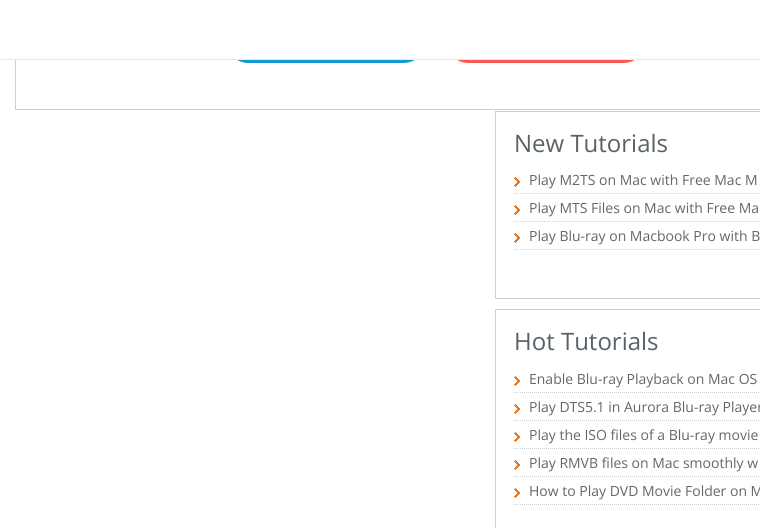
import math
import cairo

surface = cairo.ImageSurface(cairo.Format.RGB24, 760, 528)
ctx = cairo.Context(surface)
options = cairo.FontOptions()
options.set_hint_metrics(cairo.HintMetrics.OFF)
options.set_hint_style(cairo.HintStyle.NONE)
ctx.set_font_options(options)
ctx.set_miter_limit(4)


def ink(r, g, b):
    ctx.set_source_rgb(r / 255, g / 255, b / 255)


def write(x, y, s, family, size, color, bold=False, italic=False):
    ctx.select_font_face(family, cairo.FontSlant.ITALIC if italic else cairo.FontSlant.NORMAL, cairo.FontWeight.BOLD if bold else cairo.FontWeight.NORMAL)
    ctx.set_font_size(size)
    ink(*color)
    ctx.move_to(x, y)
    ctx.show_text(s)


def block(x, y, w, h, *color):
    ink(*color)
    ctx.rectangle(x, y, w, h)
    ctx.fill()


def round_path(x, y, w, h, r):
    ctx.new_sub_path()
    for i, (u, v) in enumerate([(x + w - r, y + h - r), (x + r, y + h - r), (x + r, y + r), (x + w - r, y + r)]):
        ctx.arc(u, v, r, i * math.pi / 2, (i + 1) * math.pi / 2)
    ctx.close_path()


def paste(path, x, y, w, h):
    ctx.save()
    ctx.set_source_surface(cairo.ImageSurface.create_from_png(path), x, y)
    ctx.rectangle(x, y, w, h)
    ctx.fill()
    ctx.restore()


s1 = dict(family="Open Sans", size=24, color=(87, 99, 105))
s2 = dict(family="Open Sans", size=14, color=(102, 102, 102))

ink(255, 255, 255)
ctx.paint()
ctx.rectangle(15.5, -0.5, 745, 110)
ink(206, 206, 206)
ctx.set_line_width(1)
ctx.stroke()
ink(21, 153, 214)
round_path(226, 18, 200, 45, 22.5)
ctx.fill()
ink(247, 90, 80)
round_path(446, 18, 200, 45, 22.5)
ctx.fill()
block(15, 0, 631, 59, 255, 255, 255)
block(0, 59, 760, 1, 223, 235, 238)
block(0, 59, 1, 1, 255, 255, 255)
ctx.rectangle(495.5, 111.5, 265, 187)
ink(206, 206, 206)
ctx.stroke()
write(514, 152, "New Tutorials", **s1)
paste("pic1.png", 514, 177, 6, 10)
ctx.new_path()
ctx.move_to(514, 193.5)
ctx.line_to(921, 193.5)
ink(206, 206, 206)
ctx.set_dash([1, 1])
ctx.stroke()
write(529, 185, "Play M2TS on Mac with Free Mac M", **s2)
paste("pic1.png", 514, 205, 6, 10)
ctx.new_path()
ctx.move_to(514, 221.5)
ctx.line_to(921, 221.5)
ink(206, 206, 206)
ctx.stroke()
write(529, 213, "Play MTS Files on Mac with Free Ma", **s2)
paste("pic1.png", 514, 233, 6, 10)
ctx.new_path()
ctx.move_to(514, 249.5)
ctx.line_to(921, 249.5)
ink(206, 206, 206)
ctx.stroke()
write(529, 241, "Play Blu-ray on Macbook Pro with B", **s2)
ctx.rectangle(495.5, 309.5, 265, 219)
ink(206, 206, 206)
ctx.set_dash([])
ctx.stroke()
write(514, 350, "Hot Tutorials", **s1)
paste("pic1.png", 514, 376, 6, 10)
ctx.new_path()
ctx.move_to(514, 392.5)
ctx.line_to(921, 392.5)
ink(206, 206, 206)
ctx.set_dash([1, 1])
ctx.stroke()
write(529, 384, "Enable Blu-ray Playback on Mac OS", **s2)
paste("pic1.png", 514, 404, 6, 10)
ctx.new_path()
ctx.move_to(514, 420.5)
ctx.line_to(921, 420.5)
ink(206, 206, 206)
ctx.stroke()
write(529, 412, "Play DTS5.1 in Aurora Blu-ray Player", **s2)
paste("pic1.png", 514, 432, 6, 10)
ctx.new_path()
ctx.move_to(514, 448.5)
ctx.line_to(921, 448.5)
ink(206, 206, 206)
ctx.stroke()
write(529, 440, "Play the ISO files of a Blu-ray movie", **s2)
paste("pic1.png", 514, 460, 6, 10)
ctx.new_path()
ctx.move_to(514, 476.5)
ctx.line_to(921, 476.5)
ink(206, 206, 206)
ctx.stroke()
write(529, 468, "Play RMVB files on Mac smoothly w", **s2)
paste("pic1.png", 514, 488, 6, 10)
ctx.new_path()
ctx.move_to(514, 504.5)
ctx.line_to(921, 504.5)
ink(206, 206, 206)
ctx.stroke()
write(529, 496, "How to Play DVD Movie Folder on M", **s2)
surface.write_to_png("screenshot.png")
